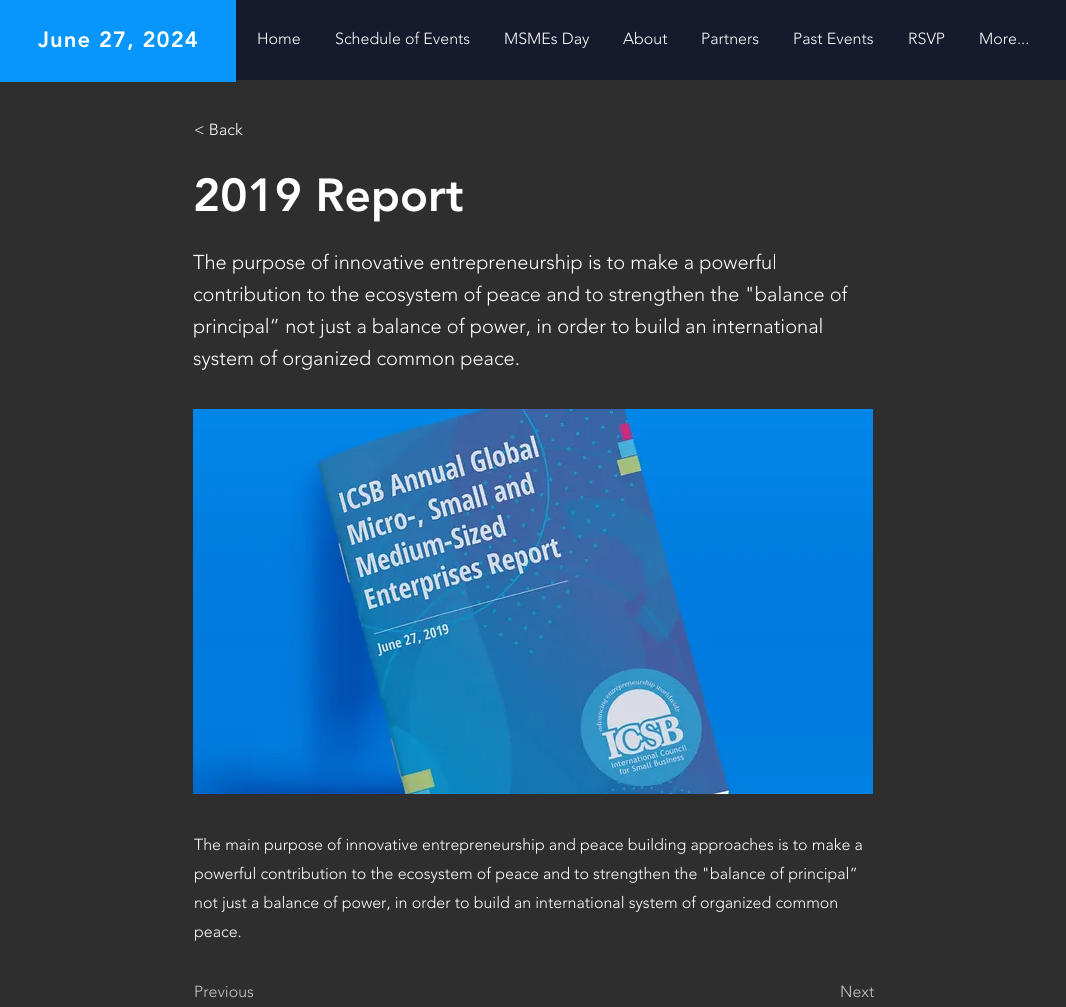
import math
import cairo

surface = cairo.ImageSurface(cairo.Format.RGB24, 1066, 1007)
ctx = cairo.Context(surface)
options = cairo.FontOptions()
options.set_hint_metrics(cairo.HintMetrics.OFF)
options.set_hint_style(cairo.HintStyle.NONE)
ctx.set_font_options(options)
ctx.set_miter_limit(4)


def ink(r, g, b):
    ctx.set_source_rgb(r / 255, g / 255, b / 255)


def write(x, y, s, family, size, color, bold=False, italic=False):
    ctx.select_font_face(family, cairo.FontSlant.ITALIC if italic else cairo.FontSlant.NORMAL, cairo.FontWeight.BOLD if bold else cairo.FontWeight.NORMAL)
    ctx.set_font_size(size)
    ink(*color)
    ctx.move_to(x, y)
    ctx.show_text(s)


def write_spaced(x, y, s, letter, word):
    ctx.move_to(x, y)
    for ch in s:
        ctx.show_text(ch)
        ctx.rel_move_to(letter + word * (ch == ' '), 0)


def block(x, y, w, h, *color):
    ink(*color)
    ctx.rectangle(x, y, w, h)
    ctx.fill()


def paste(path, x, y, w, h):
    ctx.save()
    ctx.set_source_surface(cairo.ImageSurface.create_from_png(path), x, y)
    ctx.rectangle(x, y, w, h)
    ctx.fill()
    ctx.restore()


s1 = dict(family="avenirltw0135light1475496 Light", size=16, color=(255, 255, 255))
s2 = dict(family="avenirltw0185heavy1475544 Black", size=46, color=(255, 255, 255))
s3 = dict(family="avenirltw0135light1475496 Light", size=20, color=(255, 255, 255))
s4 = dict(family="avenirltw0135light1475496 Light", size=16, color=(199, 199, 199))

ink(47, 46, 46)
ctx.paint()
block(0, 0, 236, 82, 8, 150, 252)
ctx.select_font_face("avenirltw0185heavy1475544 Black")
ctx.set_font_size(22)
ink(255, 255, 255)
write_spaced(38, 47, "June 27, 2024", 1.1, 0)
block(236, 0, 830, 80, 21, 26, 44)
write(257, 44, "Home", **s1)
write(335, 44, "Schedule of Events", **s1)
write(504, 44, "MSMEs Day", **s1)
write(623, 44, "About", **s1)
write(701, 44, "Partners", **s1)
write(793, 44, "Past Events", **s1)
write(908, 44, "RSVP", **s1)
write(979, 44, "More...", **s1)
write(194, 135, "< Back", **s1)
write(193, 211, "2019 Report", **s2)
write(193, 269, "The purpose of innovative entrepreneurship is to make a powerful", **s3)
write(193, 301, "contribution to the ecosystem of peace and to strengthen the \"balance of", **s3)
write(193, 333, "principal” not just a balance of power, in order to build an international", **s3)
write(193, 365, "system of organized common peace.", **s3)
paste("pic1.png", 193, 409, 680, 385)
write(194, 850, "The main purpose of innovative entrepreneurship and peace building approaches is to make a", **s1)
write(194, 879, "powerful contribution to the ecosystem of peace and to strengthen the \"balance of principal”", **s1)
write(194, 908, "not just a balance of power, in order to build an international system of organized common", **s1)
write(194, 937, "peace.", **s1)
write(194, 997, "Previous", **s4)
write(840, 997, "Next", **s4)
surface.write_to_png("screenshot.png")
